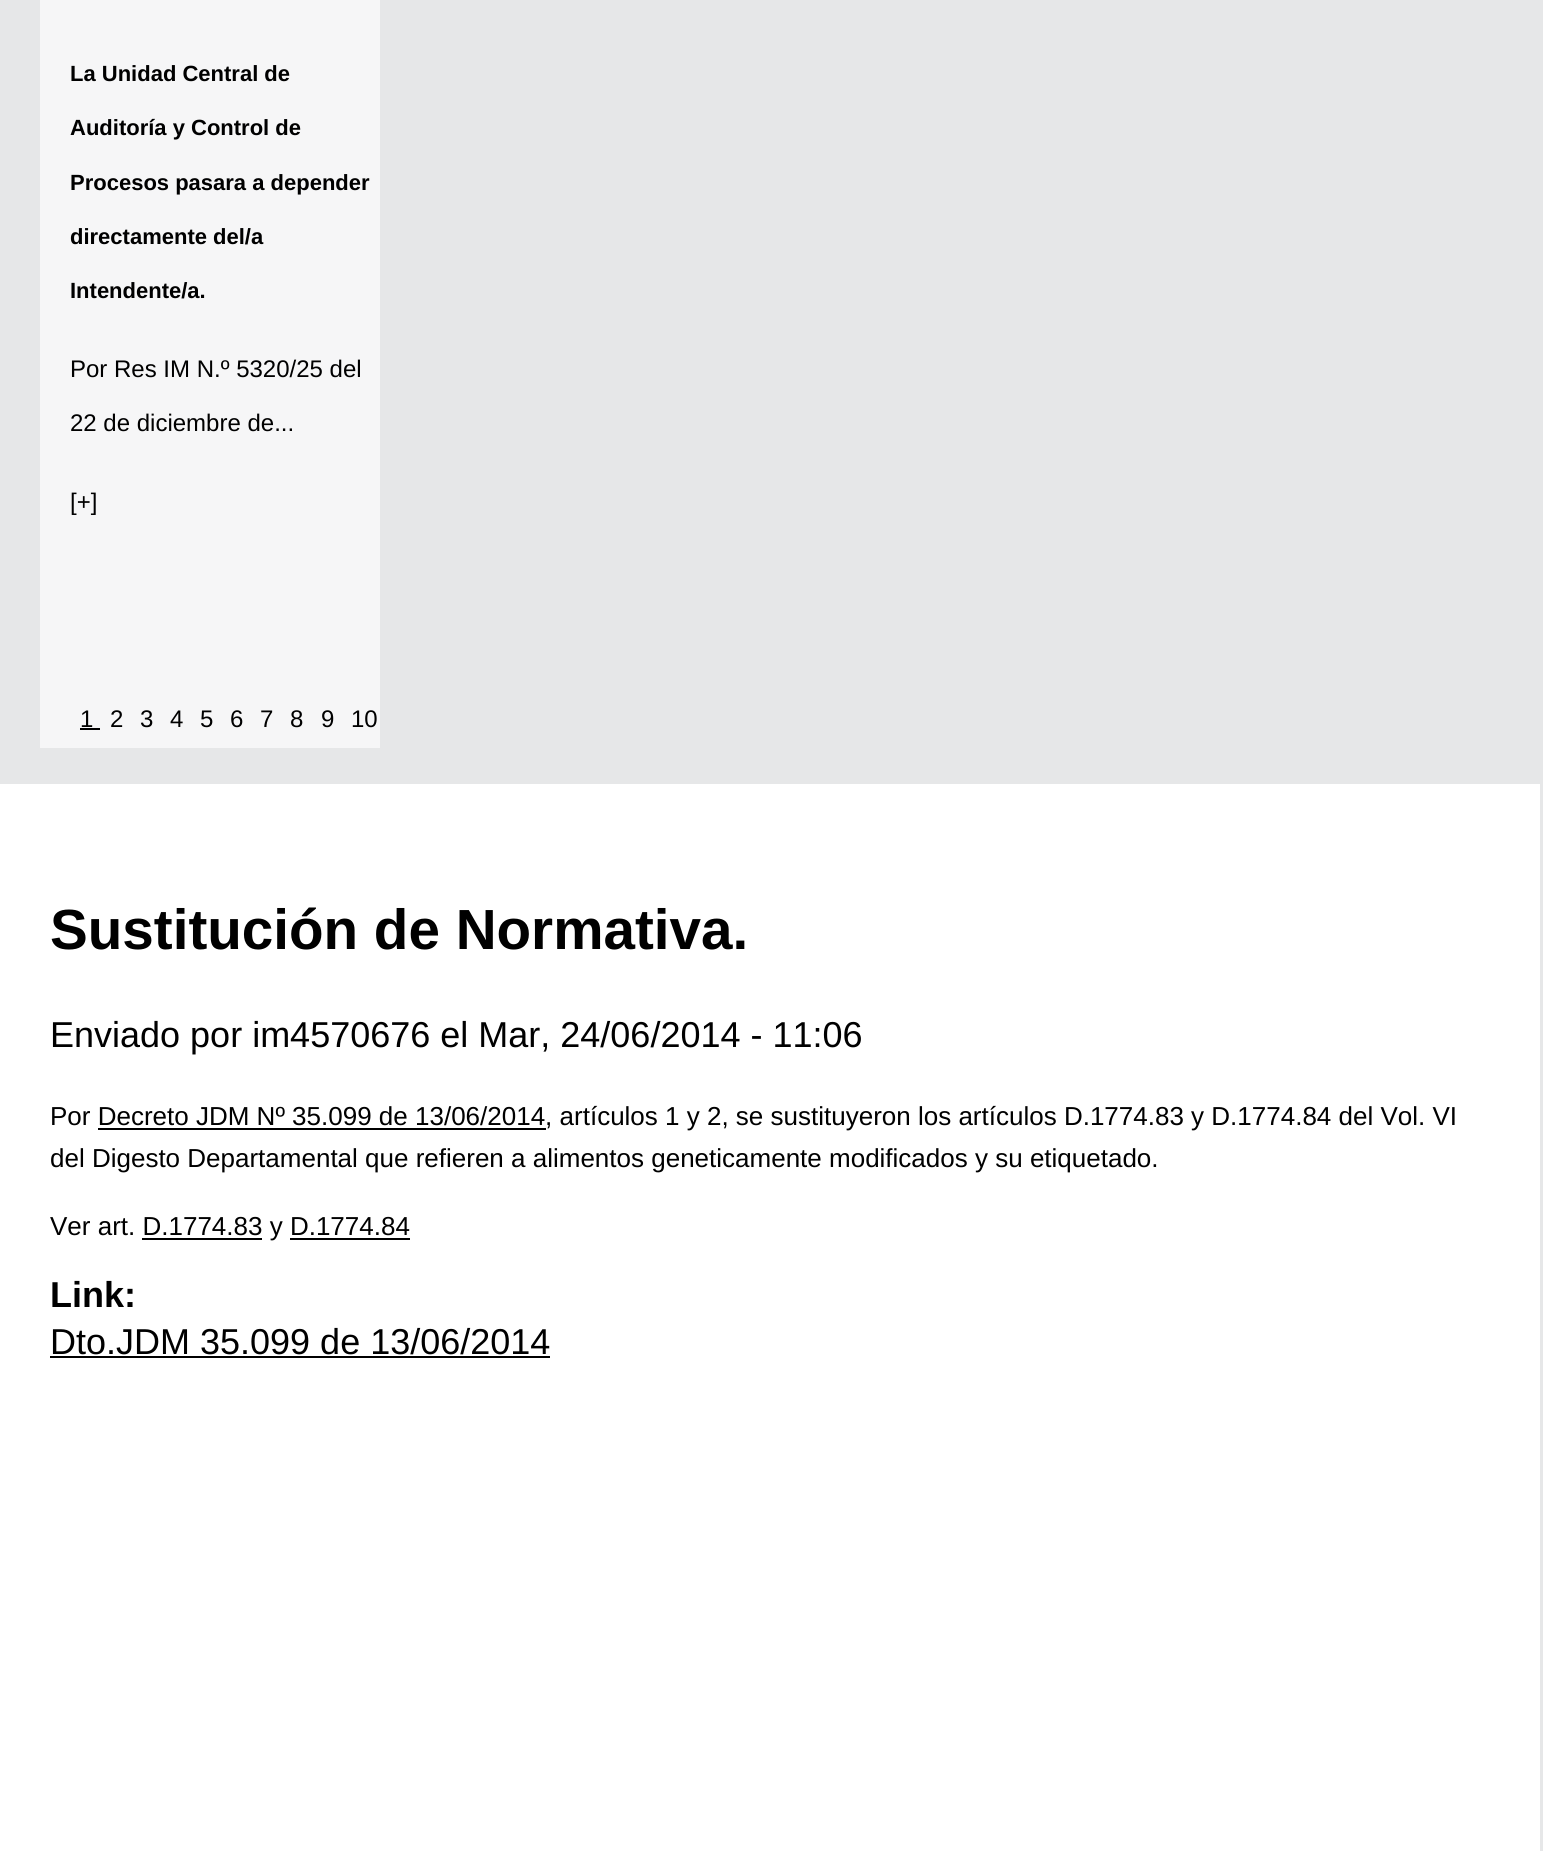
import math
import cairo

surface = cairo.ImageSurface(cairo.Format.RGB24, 1543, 1851)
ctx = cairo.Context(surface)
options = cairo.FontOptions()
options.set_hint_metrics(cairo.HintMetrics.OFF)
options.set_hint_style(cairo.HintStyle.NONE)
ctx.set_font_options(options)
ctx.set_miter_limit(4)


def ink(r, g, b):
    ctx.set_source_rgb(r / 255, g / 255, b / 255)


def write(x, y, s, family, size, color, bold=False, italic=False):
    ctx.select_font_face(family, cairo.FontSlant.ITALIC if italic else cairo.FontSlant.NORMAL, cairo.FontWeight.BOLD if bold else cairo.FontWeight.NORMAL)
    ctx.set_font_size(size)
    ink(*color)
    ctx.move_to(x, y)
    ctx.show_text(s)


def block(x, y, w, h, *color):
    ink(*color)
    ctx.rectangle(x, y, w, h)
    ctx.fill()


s1 = dict(family="Liberation Sans", size=22, color=(0, 0, 0), bold=True)
s2 = dict(family="Liberation Sans", size=24, color=(0, 0, 0))
s3 = dict(family="Liberation Sans", size=56.6, color=(0, 0, 0), bold=True)
s4 = dict(family="Liberation Sans", size=36, color=(0, 0, 0))
s5 = dict(family="Liberation Sans", size=26, color=(0, 0, 0))
s6 = dict(family="Liberation Sans", size=36, color=(0, 0, 0), bold=True)

ink(230, 231, 232)
ctx.paint()
block(40, 0, 340, 748, 246, 246, 247)
write(70, 81, "La Unidad Central de", **s1)
write(70, 135, "Auditoría y Control de", **s1)
write(70, 190, "Procesos pasara a depender", **s1)
write(70, 244, "directamente del/a", **s1)
write(70, 298, "Intendente/a.", **s1)
write(70, 377, "Por Res IM N.º 5320/25 del", **s2)
write(70, 431, "22 de diciembre de...", **s2)
write(70, 510, "[+]", **s2)
write(80, 727, "1", **s2)
block(80, 728, 20, 2, 0, 0, 0)
write(110, 727, "2", **s2)
write(140, 727, "3", **s2)
write(170, 727, "4", **s2)
write(200, 727, "5", **s2)
write(230, 727, "6", **s2)
write(260, 727, "7", **s2)
write(290, 727, "8", **s2)
write(321, 727, "9", **s2)
write(351, 727, "10", **s2)
block(0, 784, 1540, 1067, 255, 255, 255)
write(50, 949, "Sustitución de Normativa.", **s3)
write(50, 1047, "Enviado por im4570676 el Mar, 24/06/2014 - 11:06", **s4)
write(50, 1125, "Por Decreto JDM Nº 35.099 de 13/06/2014, artículos 1 y 2, se sustituyeron los artículos D.1774.83 y D.1774.84 del Vol. VI", **s5)
block(98, 1128, 448, 2, 0, 0, 0)
write(50, 1167, "del Digesto Departamental que refieren a alimentos geneticamente modificados y su etiquetado.", **s5)
write(50, 1235, "Ver art. D.1774.83 y D.1774.84", **s5)
block(142, 1238, 120, 2, 0, 0, 0)
block(290, 1238, 120, 2, 0, 0, 0)
write(50, 1307, "Link:", **s6)
write(50, 1354, "Dto.JDM 35.099 de 13/06/2014", **s4)
block(50, 1356, 500, 2, 0, 0, 0)
surface.write_to_png("screenshot.png")
